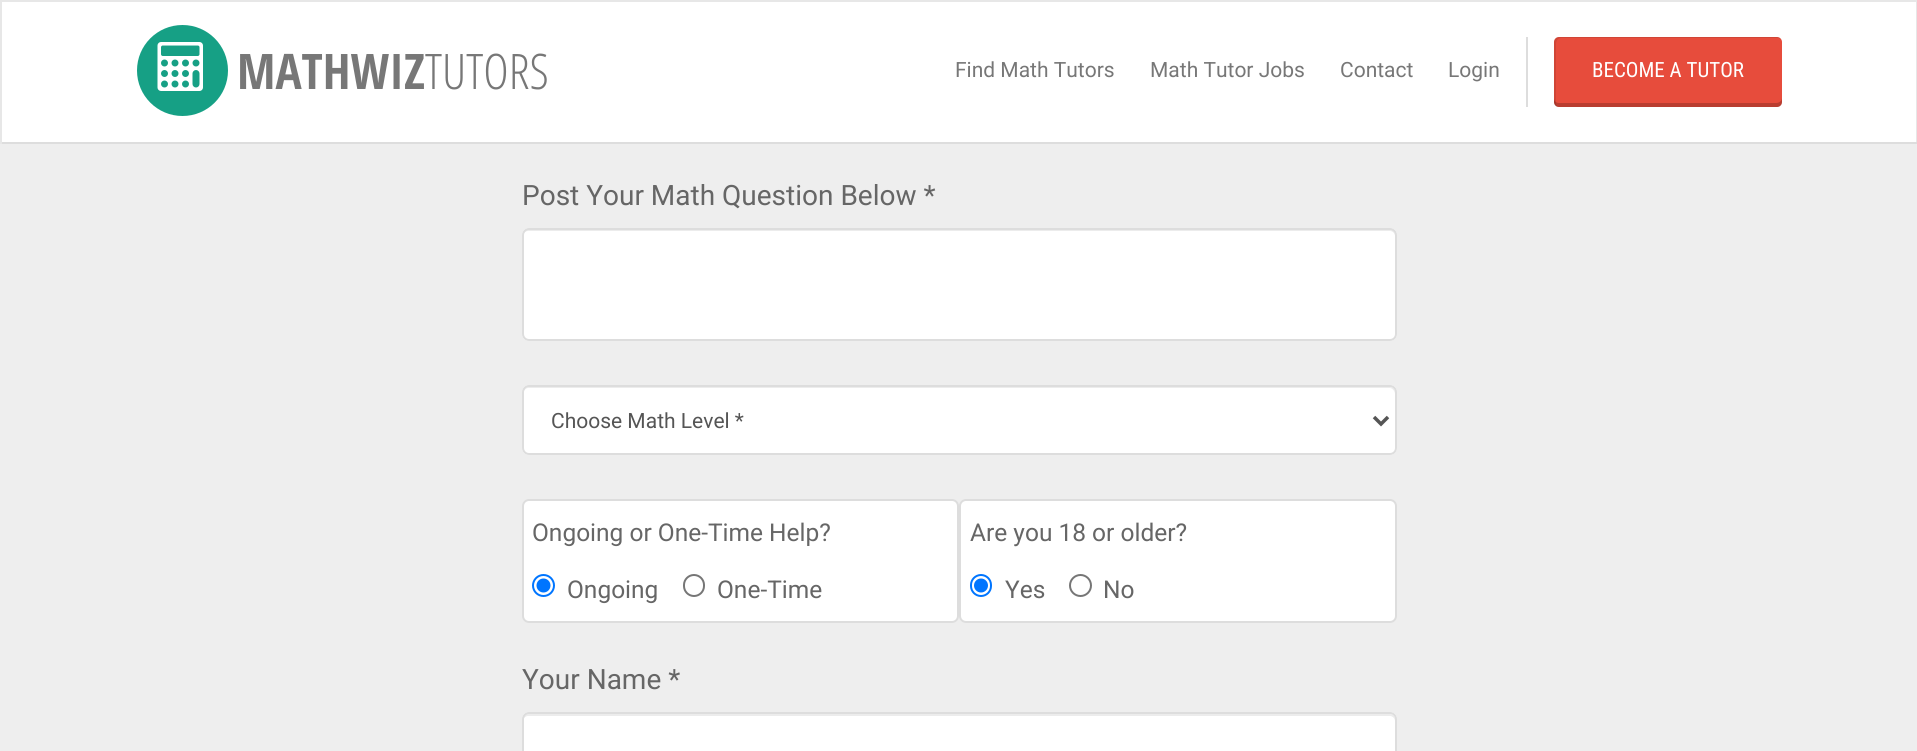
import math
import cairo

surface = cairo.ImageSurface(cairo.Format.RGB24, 1917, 751)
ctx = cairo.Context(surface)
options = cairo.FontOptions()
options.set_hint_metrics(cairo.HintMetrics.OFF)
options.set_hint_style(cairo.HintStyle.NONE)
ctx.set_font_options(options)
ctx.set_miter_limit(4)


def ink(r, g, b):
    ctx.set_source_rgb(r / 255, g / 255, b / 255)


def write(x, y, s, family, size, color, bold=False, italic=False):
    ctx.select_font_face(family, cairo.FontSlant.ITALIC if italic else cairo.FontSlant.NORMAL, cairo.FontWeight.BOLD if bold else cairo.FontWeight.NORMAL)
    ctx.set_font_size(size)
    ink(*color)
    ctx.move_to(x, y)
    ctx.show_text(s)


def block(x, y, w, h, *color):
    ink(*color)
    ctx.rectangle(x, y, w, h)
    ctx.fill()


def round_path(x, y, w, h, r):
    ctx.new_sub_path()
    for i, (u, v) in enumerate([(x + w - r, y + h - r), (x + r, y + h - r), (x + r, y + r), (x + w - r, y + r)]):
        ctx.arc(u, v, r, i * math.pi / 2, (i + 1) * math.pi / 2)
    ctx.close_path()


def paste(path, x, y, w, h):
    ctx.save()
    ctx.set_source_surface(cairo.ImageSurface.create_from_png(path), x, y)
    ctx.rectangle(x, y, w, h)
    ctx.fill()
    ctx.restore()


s1 = dict(family="Open Sans Condensed", size=49, color=(119, 119, 119), bold=True)
s2 = dict(family="Open Sans Condensed Light", size=49, color=(119, 119, 119))
s3 = dict(family="Roboto", size=21, color=(119, 119, 119))
s4 = dict(family="Roboto Condensed", size=21, color=(255, 255, 255))
s5 = dict(family="Roboto", size=28, color=(102, 102, 102))
s6 = dict(family="Roboto", size=21, color=(85, 85, 85))
s7 = dict(family="Roboto", size=24.5, color=(102, 102, 102))

ink(238, 238, 238)
ctx.paint()
block(2, 2, 1914, 140, 255, 255, 255)
block(0, 0, 1917, 2, 231, 231, 231)
block(1916, 0, 1, 144, 231, 231, 231)
block(0, 142, 1917, 2, 221, 221, 221)
block(0, 0, 2, 144, 231, 231, 231)
ink(22, 160, 133)
ctx.arc(182.5, 70.5, 45.5, 0, 2 * math.pi)
ctx.fill()
paste("pic1.png", 157, 42, 46, 49)
write(237, 89, "MATHWIZ", **s1)
write(425, 89, "TUTORS", **s2)
write(955, 77, "Find Math Tutors", **s3)
write(1150, 77, "Math Tutor Jobs", **s3)
write(1340, 77, "Contact", **s3)
write(1448, 77, "Login", **s3)
block(1526, 37, 2, 70, 221, 221, 221)
ink(231, 76, 60)
round_path(1554, 37, 228, 70, 5)
ctx.fill()
ctx.set_source_rgba(0, 0, 0, 0.1)
ctx.new_path()
ctx.move_to(1561, 38)
ctx.line_to(1778, 38)
ctx.curve_to(1779, 38, 1781, 39, 1781, 40)
ctx.curve_to(1781, 38, 1779, 37, 1777, 37)
ctx.line_to(1559, 37)
ctx.curve_to(1556, 37, 1554, 39, 1554, 42)
ctx.line_to(1554, 102)
ctx.curve_to(1554, 104, 1555, 106, 1558, 107)
ctx.curve_to(1557, 106, 1556, 105, 1556, 103)
ctx.line_to(1556, 44)
ctx.curve_to(1556, 41, 1558, 38, 1561, 38)
ctx.close_path()
ctx.fill()
ctx.set_source_rgba(0, 0, 0, 0.2)
ctx.new_path()
ctx.move_to(1554, 98)
ctx.line_to(1554, 102)
ctx.curve_to(1554, 105, 1556, 107, 1559, 107)
ctx.line_to(1777, 107)
ctx.curve_to(1780, 107, 1782, 105, 1782, 102)
ctx.line_to(1782, 98)
ctx.curve_to(1782, 101, 1779, 103, 1776, 103)
ctx.line_to(1559, 103)
ctx.curve_to(1556, 103, 1554, 101, 1554, 98)
ctx.close_path()
ctx.fill()
write(1592, 77, "BECOME A TUTOR", **s4)
write(522, 205, "Post Your Math Question Below *", **s5)
ink(255, 255, 255)
round_path(522, 228, 875, 113, 7)
ctx.fill()
ink(236, 236, 236)
ctx.new_path()
ctx.move_to(528, 231)
ctx.line_to(1390, 231)
ctx.curve_to(1392, 231, 1395, 233, 1395, 236)
ctx.line_to(1395, 234)
ctx.curve_to(1395, 231, 1393, 229, 1390, 229)
ctx.line_to(528, 229)
ctx.curve_to(525, 229, 523, 231, 523, 234)
ctx.line_to(523, 236)
ctx.curve_to(523, 233, 526, 231, 528, 231)
ctx.close_path()
ctx.fill()
round_path(523, 229, 873, 111, 6)
ink(221, 221, 221)
ctx.stroke()
ink(255, 255, 255)
round_path(522, 385, 875, 70, 7)
ctx.fill()
ink(236, 236, 236)
ctx.new_path()
ctx.move_to(528, 388)
ctx.line_to(1390, 388)
ctx.curve_to(1392, 388, 1395, 391, 1395, 394)
ctx.line_to(1395, 392)
ctx.curve_to(1395, 389, 1393, 387, 1390, 387)
ctx.line_to(528, 387)
ctx.curve_to(525, 387, 523, 389, 523, 392)
ctx.line_to(523, 394)
ctx.curve_to(523, 391, 526, 388, 528, 388)
ctx.close_path()
ctx.fill()
round_path(523, 386, 873, 68, 6)
ink(221, 221, 221)
ctx.stroke()
ctx.new_path()
ctx.move_to(1374, 417)
ctx.line_to(1381, 424)
ctx.line_to(1388, 417)
ink(85, 85, 85)
ctx.set_line_width(3.5)
ctx.stroke()
write(551, 428, "Choose Math Level *", **s6)
ink(255, 255, 255)
round_path(523, 500, 435, 122, 6)
ctx.fill_preserve()
ink(221, 221, 221)
ctx.set_line_width(2)
ctx.stroke()
write(532, 541, "Ongoing or One-Time Help?", **s7)
ctx.new_path()
ctx.arc(543.5, 585.5, 10.5, 0, 2 * math.pi)
ink(0, 117, 255)
ctx.stroke()
ctx.arc(543.5, 585.5, 7, 0, 2 * math.pi)
ctx.fill()
write(567, 598, "Ongoing", **s7)
round_path(684, 575, 20, 21, 10)
ink(118, 118, 118)
ctx.stroke()
write(717, 598, "One-Time", **s7)
ink(255, 255, 255)
round_path(960, 500, 436, 122, 6)
ctx.fill_preserve()
ink(221, 221, 221)
ctx.stroke()
write(970, 541, "Are you 18 or older?", **s7)
round_path(971, 575, 20, 21, 10)
ink(0, 117, 255)
ctx.stroke()
ctx.arc(981, 585.5, 7, 0, 2 * math.pi)
ctx.fill()
write(1005, 598, "Yes", **s7)
ctx.new_path()
ctx.arc(1080.5, 585.5, 10.5, 0, 2 * math.pi)
ink(118, 118, 118)
ctx.stroke()
write(1103, 598, "No", **s7)
write(522, 689, "Your Name *", **s5)
ink(255, 255, 255)
round_path(522, 712, 875, 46, 7)
ctx.fill()
ink(236, 236, 236)
ctx.new_path()
ctx.move_to(528, 716)
ctx.line_to(1390, 716)
ctx.curve_to(1392, 716, 1395, 718, 1395, 721)
ctx.line_to(1395, 719)
ctx.curve_to(1395, 716, 1393, 714, 1390, 714)
ctx.line_to(528, 714)
ctx.curve_to(525, 714, 523, 716, 523, 719)
ctx.line_to(523, 721)
ctx.curve_to(523, 718, 526, 716, 528, 716)
ctx.close_path()
ctx.fill()
round_path(523, 713, 873, 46, 6)
ink(221, 221, 221)
ctx.stroke()
surface.write_to_png("screenshot.png")
